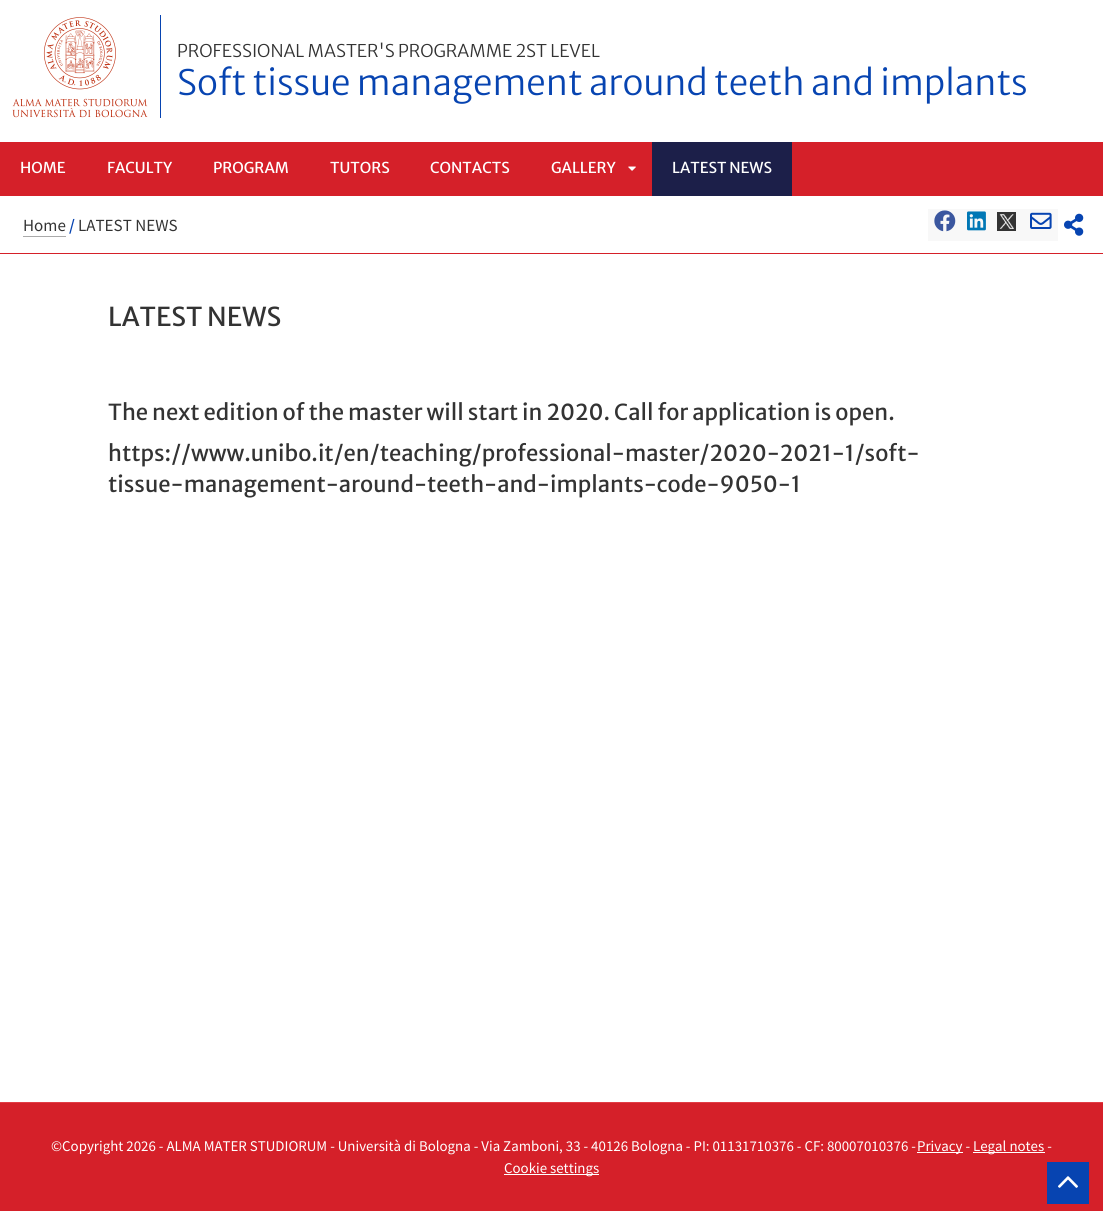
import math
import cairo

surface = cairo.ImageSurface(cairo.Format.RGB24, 1103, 1211)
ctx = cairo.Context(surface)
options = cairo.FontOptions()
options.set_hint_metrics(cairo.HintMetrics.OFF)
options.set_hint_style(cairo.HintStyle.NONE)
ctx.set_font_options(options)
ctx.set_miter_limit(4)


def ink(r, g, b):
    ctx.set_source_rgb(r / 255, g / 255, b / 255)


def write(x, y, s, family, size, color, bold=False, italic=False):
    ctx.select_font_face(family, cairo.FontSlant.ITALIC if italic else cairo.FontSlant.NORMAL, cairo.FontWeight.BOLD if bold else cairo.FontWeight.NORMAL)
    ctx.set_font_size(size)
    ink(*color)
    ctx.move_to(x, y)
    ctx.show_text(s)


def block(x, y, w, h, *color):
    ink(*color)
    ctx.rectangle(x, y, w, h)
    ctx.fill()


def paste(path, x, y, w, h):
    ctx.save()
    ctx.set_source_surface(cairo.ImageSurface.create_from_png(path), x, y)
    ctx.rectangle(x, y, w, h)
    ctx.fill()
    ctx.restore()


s1 = dict(family="Merriweather Sans Light", size=17.5, color=(51, 51, 51))
s2 = dict(family="Merriweather Sans Light", size=35, color=(7, 68, 177))
s3 = dict(family="Merriweather Sans", size=15, color=(255, 255, 255))
s4 = dict(family="Source Sans Pro", size=17, color=(51, 51, 51))
s5 = dict(family="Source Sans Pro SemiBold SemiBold", size=17, color=(7, 68, 177))
s6 = dict(family="Merriweather Sans", size=26, color=(51, 51, 51))
s7 = dict(family="Merriweather Sans", size=22, color=(51, 51, 51))
s8 = dict(family="Source Sans Pro", size=14.88, color=(255, 255, 255))

ink(255, 255, 255)
ctx.paint()
paste("pic1.png", 12, 17, 136, 101)
block(160, 15, 1, 103, 7, 68, 177)
write(177, 57, "PROFESSIONAL MASTER'S PROGRAMME 2ST LEVEL", **s1)
write(177, 95, "Soft tissue management around teeth and implants", **s2)
block(0, 142, 1103, 54, 213, 32, 41)
write(20, 173, "HOME", **s3)
write(107, 173, "FACULTY", **s3)
write(213, 173, "PROGRAM", **s3)
write(330, 173, "TUTORS", **s3)
write(430, 173, "CONTACTS", **s3)
write(551, 173, "GALLERY", **s3)
paste("pic2.png", 628, 166, 8, 5)
block(652, 142, 140, 54, 28, 31, 73)
write(672, 173, "LATEST NEWS", **s3)
block(0, 253, 1103, 1, 213, 32, 41)
write(23, 231, "Home", **s4)
block(23, 236, 43, 1, 170, 170, 170)
write(69, 231, "/", **s5)
write(78, 231, "LATEST NEWS", **s4)
block(928, 209, 130, 32, 248, 248, 248)
paste("pic3.png", 934, 210, 22, 22)
paste("pic4.png", 967, 211, 19, 20)
block(997, 212, 19, 19, 51, 51, 51)
paste("pic5.png", 999, 214, 15, 15)
paste("pic6.png", 1030, 212, 22, 17)
paste("pic7.png", 1064, 213, 20, 23)
write(108, 326, "LATEST NEWS", **s6)
write(108, 420, "The next edition of the master will start in 2020. Call for application is open.", **s7)
write(108, 461, "https://www.unibo.it/en/teaching/professional-master/2020-2021-1/soft-", **s7)
write(108, 492, "tissue-management-around-teeth-and-implants-code-9050-1", **s7)
block(0, 1103, 1103, 108, 213, 32, 41)
block(0, 1102, 1103, 1, 226, 60, 68)
write(51, 1151, "©Copyright 2026 - ALMA MATER STUDIORUM - Università di Bologna - Via Zamboni, 33 - 40126 Bologna - PI: 01131710376 - CF: 80007010376 -", **s8)
block(917, 1152, 46, 1, 255, 255, 255)
write(917, 1151, "Privacy -", **s8)
block(973, 1152, 72, 1, 255, 255, 255)
write(973, 1151, "Legal notes -", **s8)
block(504, 1174, 95, 1, 255, 255, 255)
write(504, 1173, "Cookie settings", **s8)
block(1047, 1162, 42, 42, 7, 68, 177)
paste("pic8.png", 1058, 1176, 20, 12)
surface.write_to_png("screenshot.png")
